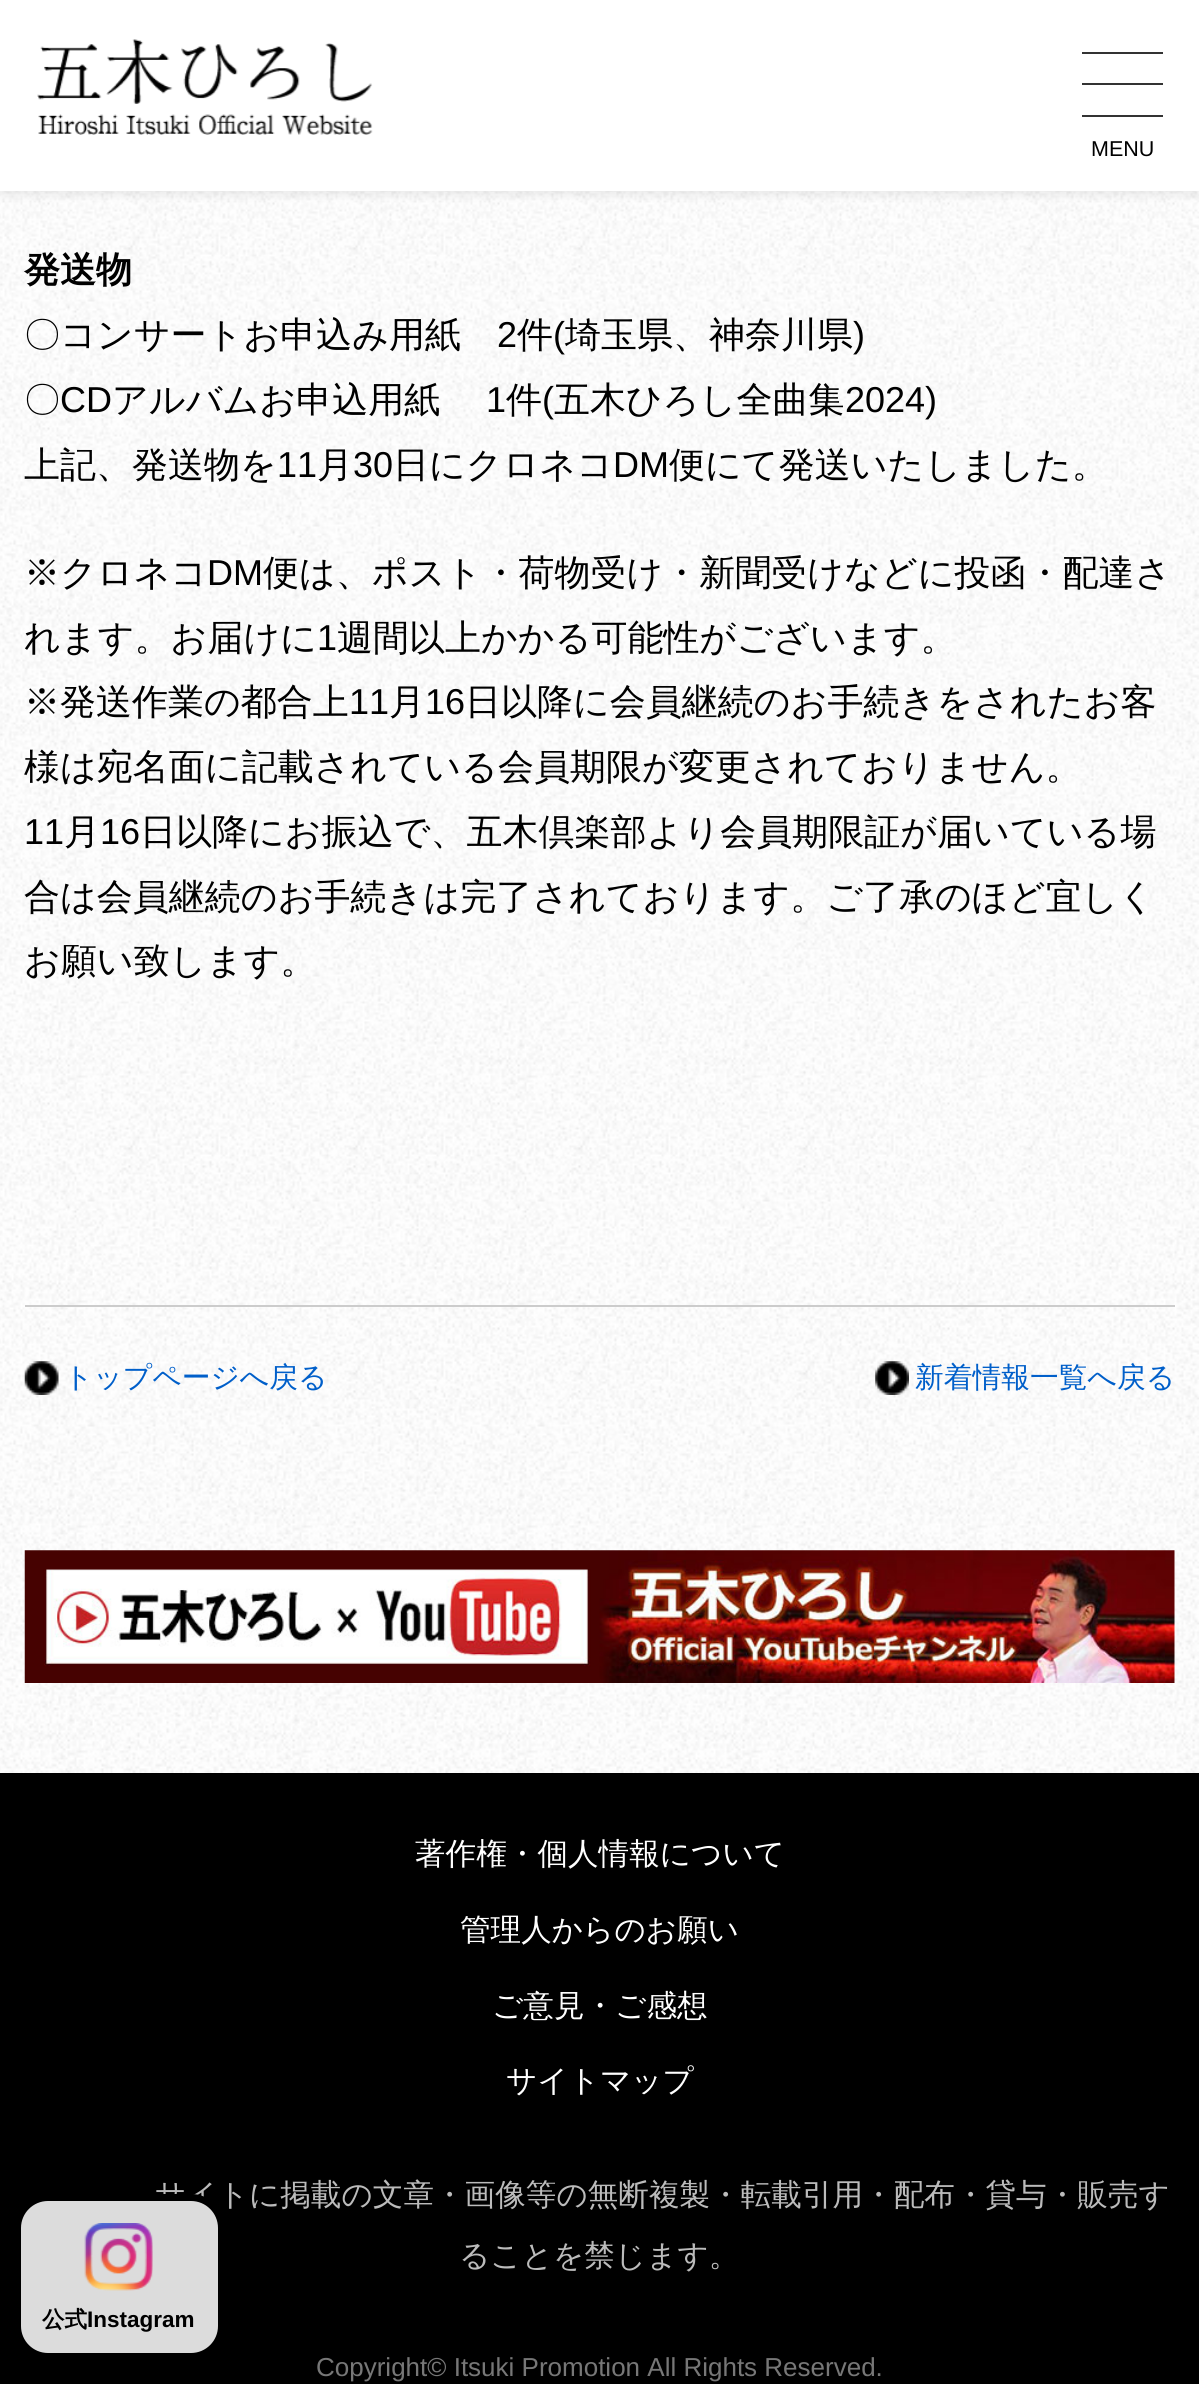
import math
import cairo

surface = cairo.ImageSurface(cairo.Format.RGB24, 1199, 2384)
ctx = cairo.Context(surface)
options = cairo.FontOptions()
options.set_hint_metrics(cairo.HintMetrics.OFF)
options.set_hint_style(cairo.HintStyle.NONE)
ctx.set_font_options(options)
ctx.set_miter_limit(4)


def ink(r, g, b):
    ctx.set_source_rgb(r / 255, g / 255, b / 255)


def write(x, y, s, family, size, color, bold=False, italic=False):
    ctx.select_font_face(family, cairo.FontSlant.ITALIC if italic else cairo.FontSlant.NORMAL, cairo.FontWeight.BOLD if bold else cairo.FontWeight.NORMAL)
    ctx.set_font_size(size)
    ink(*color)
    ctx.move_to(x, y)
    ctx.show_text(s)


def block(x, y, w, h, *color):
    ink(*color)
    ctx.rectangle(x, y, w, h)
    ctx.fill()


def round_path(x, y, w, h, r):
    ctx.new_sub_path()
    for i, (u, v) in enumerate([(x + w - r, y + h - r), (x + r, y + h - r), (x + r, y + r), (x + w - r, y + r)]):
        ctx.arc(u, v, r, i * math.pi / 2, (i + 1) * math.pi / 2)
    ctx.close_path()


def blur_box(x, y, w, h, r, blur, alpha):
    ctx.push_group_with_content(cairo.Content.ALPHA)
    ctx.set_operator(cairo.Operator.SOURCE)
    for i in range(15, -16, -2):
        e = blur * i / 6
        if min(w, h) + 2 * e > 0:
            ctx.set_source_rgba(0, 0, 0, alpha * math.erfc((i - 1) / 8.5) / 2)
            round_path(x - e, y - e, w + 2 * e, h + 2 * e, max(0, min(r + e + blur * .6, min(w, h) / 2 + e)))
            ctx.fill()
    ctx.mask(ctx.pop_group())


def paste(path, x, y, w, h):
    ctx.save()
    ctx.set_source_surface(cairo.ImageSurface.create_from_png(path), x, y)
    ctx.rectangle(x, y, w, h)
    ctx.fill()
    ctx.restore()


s1 = dict(family="Liberation Sans", size=21.5, color=(0, 0, 0))
s2 = dict(family="WenQuanYi Zen Hei", size=36, color=(0, 0, 0), bold=True)
s3 = dict(family="WenQuanYi Zen Hei Medium", size=36, color=(0, 0, 0))
s4 = dict(family="Liberation Sans", size=36, color=(0, 0, 0))
s5 = dict(family="WenQuanYi Zen Hei Medium", size=28.75, color=(0, 95, 202))
s6 = dict(family="WenQuanYi Zen Hei Medium", size=30.6, color=(255, 255, 255))
s7 = dict(family="WenQuanYi Zen Hei Medium", size=30.6, color=(187, 187, 187))
s8 = dict(family="WenQuanYi Zen Hei", size=22.5, color=(0, 0, 0), bold=True)
s9 = dict(family="Liberation Sans", size=22.5, color=(0, 0, 0), bold=True)
s10 = dict(family="Liberation Sans", size=26, color=(119, 119, 119))

ink(0, 0, 0)
ctx.paint()
paste("pic1.png", 0, 191, 1199, 1582)
blur_box(0, 5, 1199, 191, 0, 4.5, 0.07)
block(0, 0, 1199, 191, 255, 255, 255)
paste("pic2.png", 37, 39, 336, 96)
block(1082, 52, 81, 2, 51, 51, 51)
block(1082, 83, 81, 2, 51, 51, 51)
block(1082, 115, 81, 2, 51, 51, 51)
write(1091, 156, "MENU", **s1)
block(25, 1305, 1150, 2, 204, 204, 204)
write(24, 282, "発送物", **s2)
write(24, 347, "〇コンサートお申込み用紙", **s3)
write(497, 347, "2", **s4)
write(517, 347, "件", **s3)
write(553, 347, "(", **s4)
write(565, 347, "埼玉県、神奈川県", **s3)
write(853, 347, ")", **s4)
write(24, 412, "〇", **s3)
write(60, 412, "CD", **s4)
write(112, 412, "アルバムお申込用紙", **s3)
write(486, 412, "1", **s4)
write(506, 412, "件", **s3)
write(542, 412, "(", **s4)
write(554, 412, "五木ひろし全曲集", **s3)
write(845, 412, "2024)", **s4)
write(24, 477, "上記、発送物を", **s3)
write(277, 477, "11", **s4)
write(317, 477, "月", **s3)
write(353, 477, "30", **s4)
write(393, 477, "日にクロネコ", **s3)
write(613, 477, "DM", **s4)
write(669, 477, "便にて発送いたしました。", **s3)
write(24, 585, "※クロネコ", **s3)
write(207, 585, "DM", **s4)
write(263, 585, "便は、ポスト・荷物受け・新聞受けなどに投函・配達さ", **s3)
write(24, 650, "れます。お届けに", **s3)
write(317, 650, "1", **s4)
write(337, 650, "週間以上かかる可能性がございます。", **s3)
write(24, 714, "※発送作業の都合上", **s3)
write(349, 714, "11", **s4)
write(389, 714, "月", **s3)
write(425, 714, "16", **s4)
write(465, 714, "日以降に会員継続のお手続きをされたお客", **s3)
write(24, 779, "様は宛名面に記載されている会員期限が変更されておりません。", **s3)
write(24, 844, "11", **s4)
write(64, 844, "月", **s3)
write(100, 844, "16", **s4)
write(140, 844, "日以降にお振込で、五木倶楽部より会員期限証が届いている場", **s3)
write(24, 909, "合は会員継続のお手続きは完了されております。ご了承のほど宜しく", **s3)
write(24, 973, "お願い致します。", **s3)
paste("pic3.png", 24, 1361, 35, 34)
write(64, 1387, "トップページへ戻る", **s5)
paste("pic4.png", 875, 1361, 34, 34)
write(915, 1387, "新着情報一覧へ戻る", **s5)
paste("pic5.png", 24, 1550, 1151, 133)
write(415, 1864, "著作権・個人情報について", **s6)
write(460, 1940, "管理人からのお願い", **s6)
write(492, 2016, "ご意見・ご感想", **s6)
write(506, 2091, "サイトマップ", **s6)
write(155, 2205, "サイトに掲載の文章・画像等の無断複製・転載引用・配布・貸与・販売す", **s7)
write(459, 2266, "ることを禁じます。", **s7)
ink(220, 220, 220)
round_path(17.5, 2197.5, 204, 159, 30.5)
ctx.fill_preserve()
ink(0, 0, 0)
ctx.set_line_width(7)
ctx.stroke()
paste("pic6.png", 84, 2223, 69, 68)
write(42, 2327, "公式", **s8)
write(87, 2327, "Instagram", **s9)
write(316, 2376, "Copyright© Itsuki Promotion All Rights Reserved.", **s10)
surface.write_to_png("screenshot.png")
